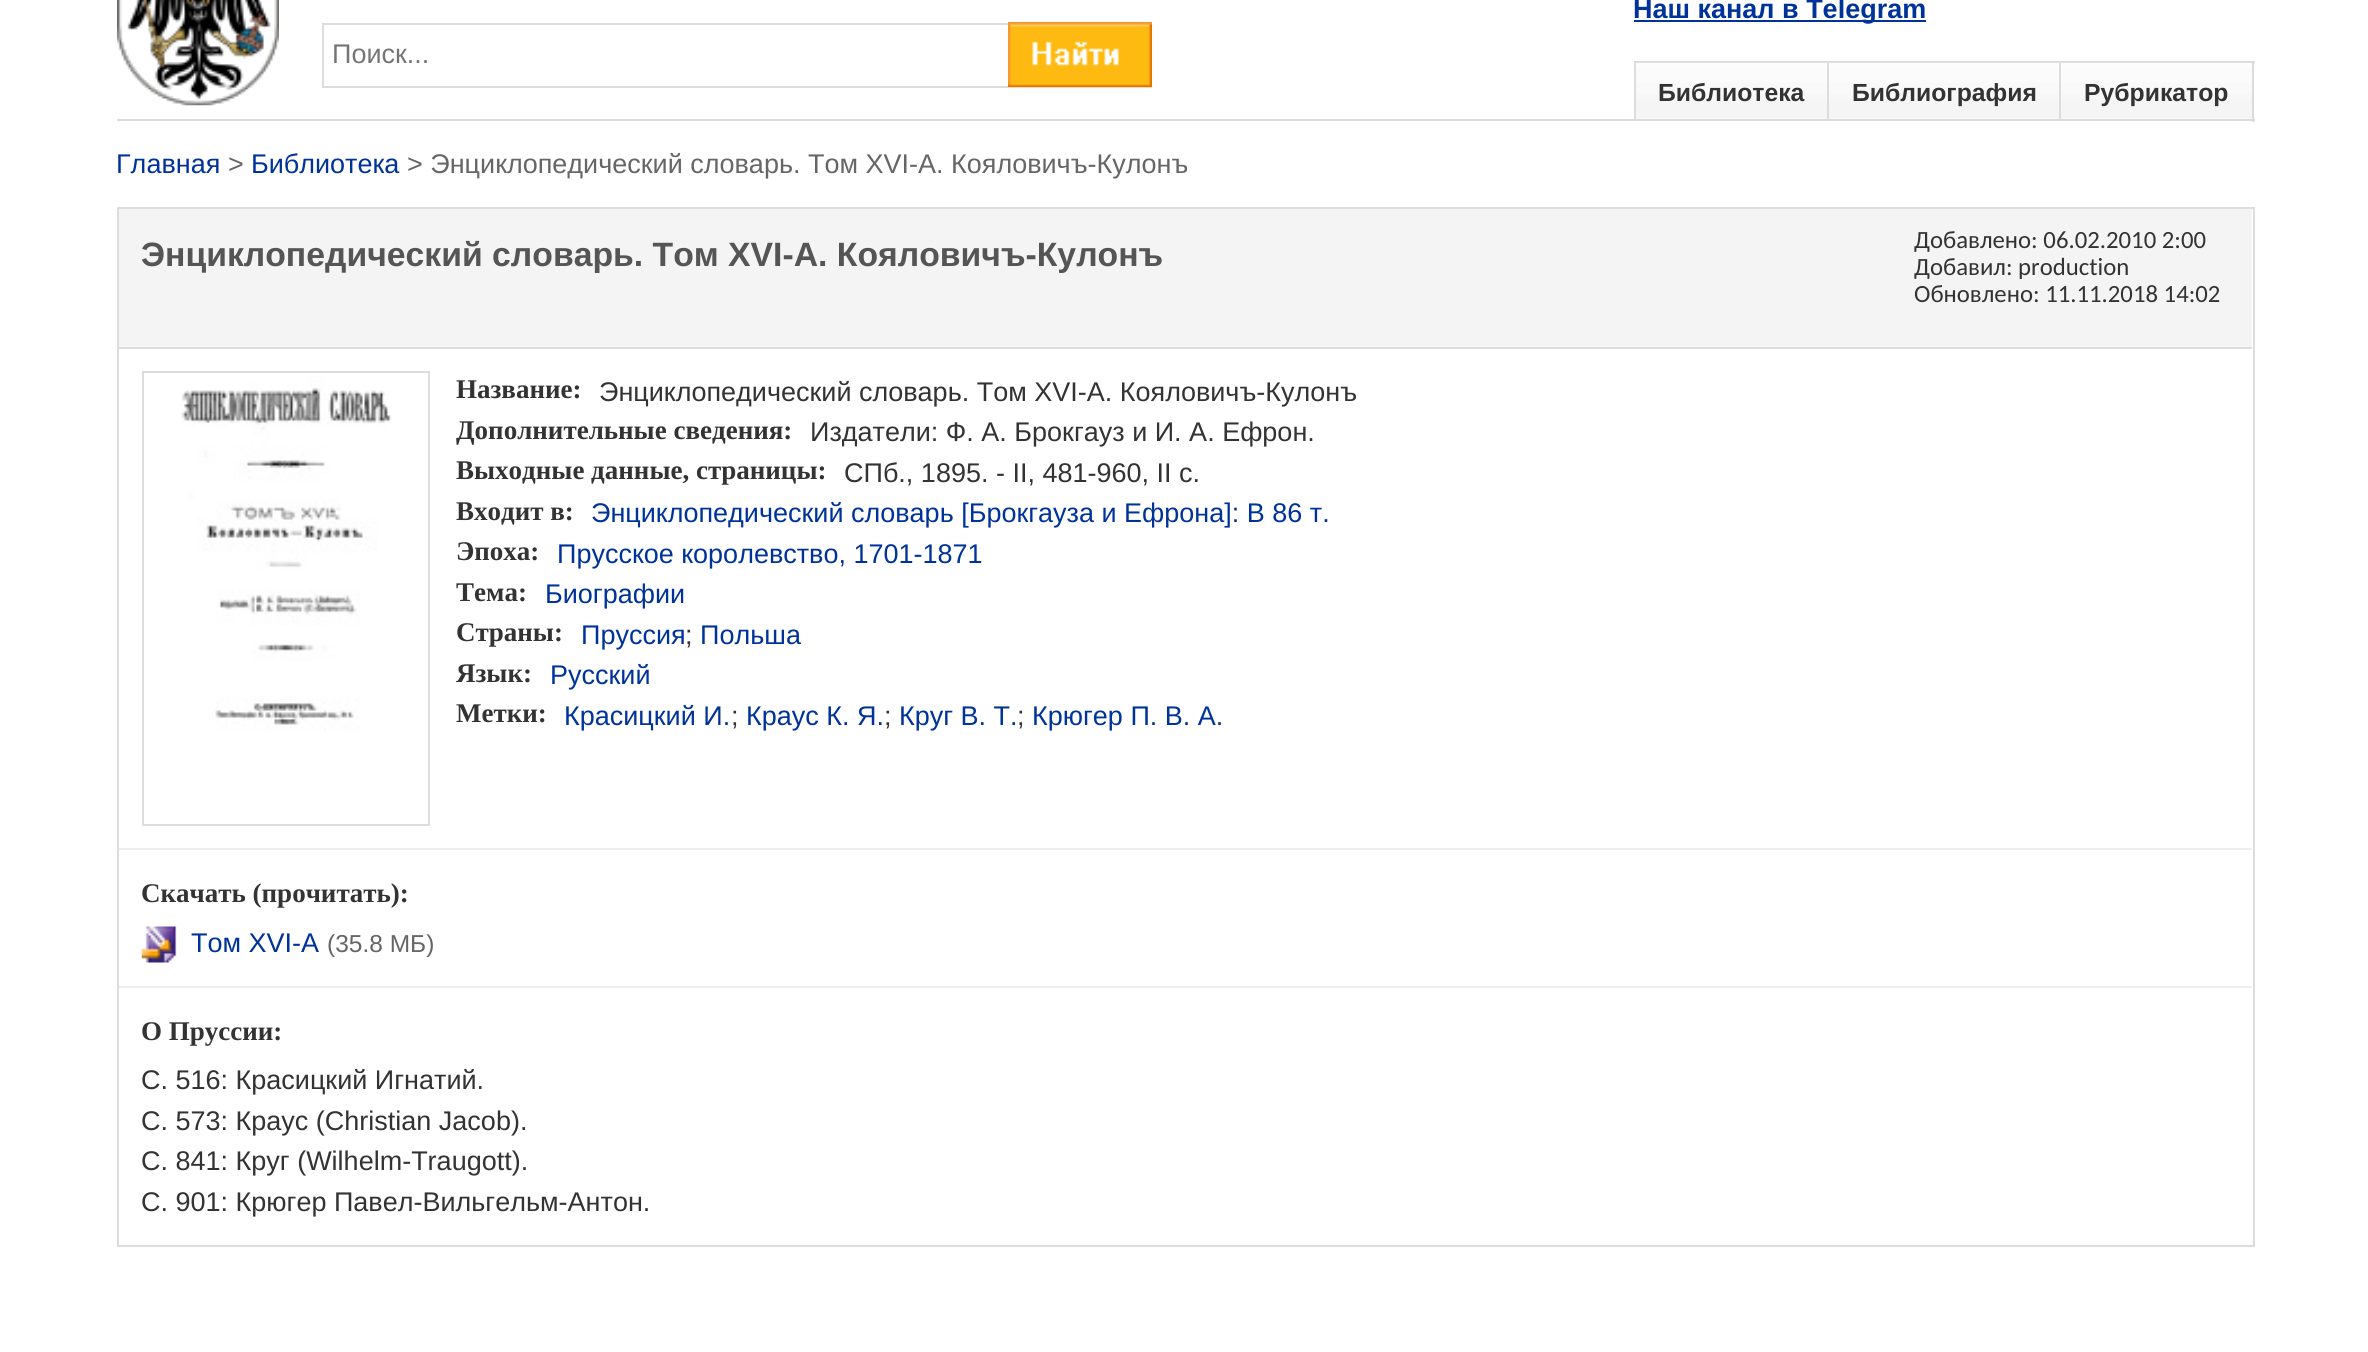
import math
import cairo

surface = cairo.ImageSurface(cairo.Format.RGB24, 2368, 1352)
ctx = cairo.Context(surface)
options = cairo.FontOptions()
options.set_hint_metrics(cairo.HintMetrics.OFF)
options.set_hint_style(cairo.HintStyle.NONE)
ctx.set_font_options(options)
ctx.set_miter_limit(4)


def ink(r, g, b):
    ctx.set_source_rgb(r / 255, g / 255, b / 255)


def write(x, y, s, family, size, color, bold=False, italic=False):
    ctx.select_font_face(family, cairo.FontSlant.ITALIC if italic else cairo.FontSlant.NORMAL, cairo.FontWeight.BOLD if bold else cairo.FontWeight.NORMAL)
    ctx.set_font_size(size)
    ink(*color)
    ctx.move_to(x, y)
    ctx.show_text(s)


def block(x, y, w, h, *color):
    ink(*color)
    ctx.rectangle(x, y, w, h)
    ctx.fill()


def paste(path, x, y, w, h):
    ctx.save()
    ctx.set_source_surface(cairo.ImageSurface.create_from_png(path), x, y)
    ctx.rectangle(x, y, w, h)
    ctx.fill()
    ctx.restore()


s1 = dict(family="Liberation Sans", size=27, color=(0, 51, 153), bold=True)
s2 = dict(family="Liberation Sans", size=27, color=(117, 117, 117))
s3 = dict(family="Liberation Sans", size=24.75, color=(51, 51, 51), bold=True)
s4 = dict(family="Liberation Sans", size=27, color=(0, 51, 153))
s5 = dict(family="Liberation Sans", size=27, color=(102, 102, 102))
s6 = dict(family="Liberation Sans", size=33.75, color=(85, 85, 85), bold=True)
s7 = dict(family="Carlito", size=24.75, color=(51, 51, 51))
s8 = dict(family="Liberation Serif", size=27, color=(51, 51, 51), bold=True)
s9 = dict(family="Liberation Sans", size=27, color=(51, 51, 51))
s10 = dict(family="Liberation Sans", size=24.5, color=(102, 102, 102))

ink(255, 255, 255)
ctx.paint()
block(117, 119, 2138, 2, 219, 219, 219)
paste("pic1.png", 117, 0, 162, 106)
block(1634, 20, 292, 2, 0, 51, 153)
write(1633, 18, "Наш канал в Telegram", **s1)
block(322, 23, 686, 2, 221, 221, 221)
block(322, 86, 686, 2, 221, 221, 221)
block(322, 23, 2, 65, 221, 221, 221)
write(332, 63, "Поиск...", **s2)
paste("pic2.png", 1008, 22, 144, 66)
block(1634, 61, 621, 2, 219, 219, 219)
block(2252, 61, 2, 61, 219, 219, 219)
paste("pic3.png", 1634, 62, 193, 57)
block(1634, 63, 2, 56, 221, 221, 221)
write(1658, 101, "Библиотека", **s3)
paste("pic4.png", 1827, 62, 232, 57)
block(1827, 63, 2, 56, 221, 221, 221)
write(1852, 101, "Библиография", **s3)
paste("pic3.png", 2059, 62, 193, 57)
block(2059, 63, 2, 56, 221, 221, 221)
write(2084, 101, "Рубрикатор", **s3)
write(116, 173, "Главная", **s4)
write(228, 173, ">", **s5)
write(251, 173, "Библиотека", **s4)
write(407, 173, "> Энциклопедический словарь. Том XVI-А. Кояловичъ-Кулонъ", **s5)
ctx.rectangle(118, 208, 2136, 1038)
ink(221, 221, 221)
ctx.stroke()
block(119, 209, 2133, 138, 244, 244, 244)
block(119, 347, 2133, 2, 221, 221, 221)
write(141, 266, "Энциклопедический словарь. Том XVI-А. Кояловичъ-Кулонъ", **s6)
write(1914, 248, "Добавлено: 06.02.2010 2:00", **s7)
write(1914, 275, "Добавил: production", **s7)
write(1914, 302, "Обновлено: 11.11.2018 14:02", **s7)
ctx.rectangle(143, 372, 286, 453)
ink(221, 221, 221)
ctx.stroke()
paste("pic5.png", 181, 376, 211, 356)
write(456, 398, "Название:", **s8)
write(599, 401, "Энциклопедический словарь. Том XVI-А. Кояловичъ-Кулонъ", **s9)
write(456, 439, "Дополнительные сведения:", **s8)
write(810, 441, "Издатели: Ф. А. Брокгауз и И. А. Ефрон.", **s9)
write(456, 479, "Выходные данные, страницы:", **s8)
write(844, 482, "СПб., 1895. - II, 481-960, II с.", **s9)
write(456, 520, "Входит в:", **s8)
write(591, 522, "Энциклопедический словарь [Брокгауза и Ефрона]: В 86 т.", **s4)
write(456, 560, "Эпоха:", **s8)
write(557, 563, "Прусское королевство, 1701-1871", **s4)
write(456, 601, "Тема:", **s8)
write(545, 603, "Биографии", **s4)
write(456, 641, "Страны:", **s8)
write(581, 644, "Пруссия", **s4)
write(685, 644, ";", **s9)
write(700, 644, "Польша", **s4)
write(456, 682, "Язык:", **s8)
write(550, 684, "Русский", **s4)
write(456, 722, "Метки:", **s8)
write(564, 725, "Красицкий И.", **s4)
write(731, 725, ";", **s9)
write(746, 725, "Краус К. Я.", **s4)
write(884, 725, ";", **s9)
write(899, 725, "Круг В. Т.", **s4)
write(1017, 725, ";", **s9)
write(1032, 725, "Крюгер П. В. А.", **s4)
block(119, 848, 2133, 2, 238, 238, 238)
write(141, 902, "Скачать (прочитать):", **s8)
paste("pic6.png", 141, 926, 36, 37)
write(191, 952, "Том XVI-А", **s4)
write(327, 952, "(35.8 МБ)", **s10)
block(119, 986, 2133, 2, 238, 238, 238)
write(141, 1040, "О Пруссии:", **s8)
write(141, 1089, "С. 516: Красицкий Игнатий.", **s9)
write(141, 1130, "С. 573: Краус (Christian Jacob).", **s9)
write(141, 1170, "С. 841: Круг (Wilhelm-Traugott).", **s9)
write(141, 1211, "С. 901: Крюгер Павел-Вильгельм-Антон.", **s9)
surface.write_to_png("screenshot.png")
